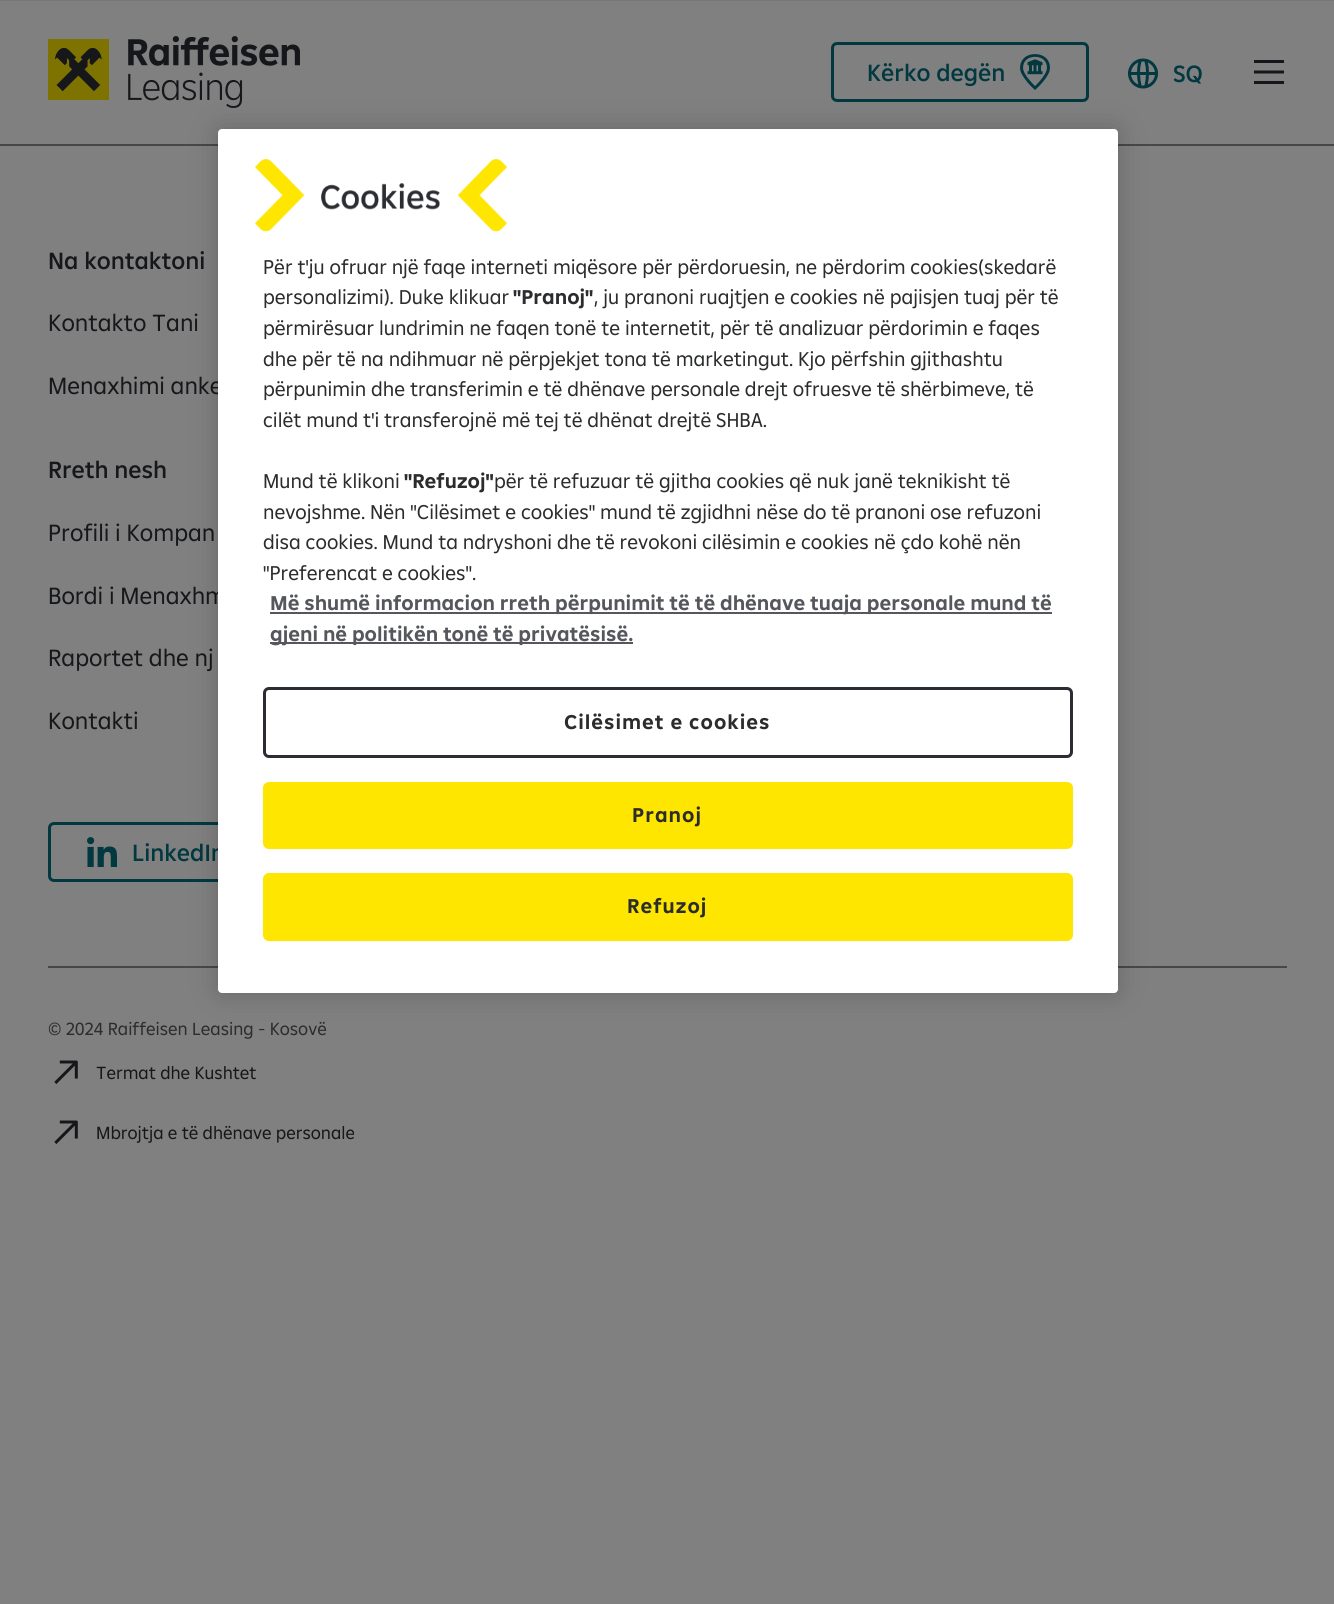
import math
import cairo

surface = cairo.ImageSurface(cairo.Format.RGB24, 1334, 1604)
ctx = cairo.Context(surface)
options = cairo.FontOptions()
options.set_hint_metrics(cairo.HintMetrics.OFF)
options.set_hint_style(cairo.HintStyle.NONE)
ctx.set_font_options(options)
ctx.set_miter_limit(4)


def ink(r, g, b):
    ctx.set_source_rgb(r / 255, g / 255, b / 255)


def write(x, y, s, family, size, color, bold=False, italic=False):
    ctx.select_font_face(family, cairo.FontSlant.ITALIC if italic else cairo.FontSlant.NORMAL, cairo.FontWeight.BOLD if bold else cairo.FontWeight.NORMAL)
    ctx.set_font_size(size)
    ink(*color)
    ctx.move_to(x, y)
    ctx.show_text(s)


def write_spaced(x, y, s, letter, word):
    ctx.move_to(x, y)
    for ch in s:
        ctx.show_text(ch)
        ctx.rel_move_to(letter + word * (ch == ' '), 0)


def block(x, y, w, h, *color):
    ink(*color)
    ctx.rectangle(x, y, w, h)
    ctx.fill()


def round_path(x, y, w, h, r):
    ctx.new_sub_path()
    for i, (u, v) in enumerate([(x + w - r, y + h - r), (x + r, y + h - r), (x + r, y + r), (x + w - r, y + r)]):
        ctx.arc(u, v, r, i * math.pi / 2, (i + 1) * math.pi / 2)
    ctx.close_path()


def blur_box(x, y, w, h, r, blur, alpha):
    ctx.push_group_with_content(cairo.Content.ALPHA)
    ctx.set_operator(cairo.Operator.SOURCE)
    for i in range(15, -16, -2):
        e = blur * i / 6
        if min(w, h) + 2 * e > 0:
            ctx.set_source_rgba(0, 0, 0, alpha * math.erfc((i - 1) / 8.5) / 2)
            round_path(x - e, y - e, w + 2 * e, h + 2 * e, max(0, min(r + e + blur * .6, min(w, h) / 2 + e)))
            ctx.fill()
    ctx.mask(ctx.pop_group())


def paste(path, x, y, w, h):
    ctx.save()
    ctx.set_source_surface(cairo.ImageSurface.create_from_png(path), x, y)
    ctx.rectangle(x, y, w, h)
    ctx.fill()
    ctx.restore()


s1 = dict(family="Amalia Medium", size=24, color=(2, 56, 64))
s2 = dict(family="Amalia Medium", size=24, color=(22, 23, 26))
s3 = dict(family="Amalia", size=24, color=(22, 23, 26))
s4 = dict(family="Amalia", size=18, color=(43, 44, 46))
s5 = dict(family="Amalia", size=18, color=(22, 23, 26))
s6 = dict(family="Amalia", size=20.4, color=(43, 44, 46))
s7 = dict(family="Amalia", size=20.4, color=(43, 44, 46), bold=True)
s8 = dict(family="Amalia", size=20.4, color=(85, 87, 93), bold=True)

ink(128, 128, 128)
ctx.paint()
block(0, 144, 1334, 2, 71, 71, 73)
block(0, 0, 1334, 1, 119, 119, 120)
paste("pic1.png", 48, 36, 252, 72)
round_path(832.5, 43.5, 255, 57, 4.5)
ink(2, 56, 64)
ctx.set_line_width(3)
ctx.stroke()
write(867, 81, "Kërko degën", **s1)
paste("pic2.png", 1020, 54, 30, 36)
paste("pic3.png", 1128, 58, 30, 31)
write(1173, 82, "SQ", **s1)
paste("pic4.png", 1254, 60, 30, 24)
write(48, 269, "Na kontaktoni", **s2)
write(48, 331, "Kontakto Tani", **s3)
write(48, 394, "Menaxhimi anke", **s3)
write(48, 478, "Rreth nesh", **s2)
write(48, 541, "Profili i Kompan", **s3)
write(48, 604, "Bordi i Menaxhm", **s3)
write(48, 666, "Raportet dhe nj", **s3)
write(48, 729, "Kontakti", **s3)
round_path(49.5, 823.5, 210, 57, 4.5)
ink(2, 56, 64)
ctx.stroke()
paste("pic5.png", 87, 837, 30, 30)
write(132, 861, "LinkedIn", **s1)
block(48, 966, 1239, 2, 71, 71, 73)
write(48, 1035, "© 2024 Raiffeisen Leasing - Kosovë", **s4)
paste("pic6.png", 54, 1060, 24, 24)
write(96, 1079, "Termat dhe Kushtet", **s5)
paste("pic6.png", 54, 1120, 24, 24)
write(96, 1139, "Mbrojtja e të dhënave personale", **s5)
ink(0, 0, 0)
blur_box(218, 129, 900, 864, 4, 13.5, 0.2)
ink(255, 255, 255)
round_path(218, 129, 900, 864, 4)
ctx.fill()
paste("pic7.png", 255, 159, 252, 73)
write(263, 274, "Për t'ju ofruar një faqe interneti miqësore për përdoruesin, ne përdorim cookies(skedarë", **s6)
write(263, 304, "personalizimi). Duke klikuar", **s6)
write(513, 304, "\"Pranoj\"", **s7)
write(594, 304, ", ju pranoni ruajtjen e cookies në pajisjen tuaj për të", **s6)
write(263, 335, "përmirësuar lundrimin ne faqen tonë te internetit, për të analizuar përdorimin e faqes", **s6)
write(263, 366, "dhe për të na ndihmuar në përpjekjet tona të marketingut. Kjo përfshin gjithashtu", **s6)
write(263, 396, "përpunimin dhe transferimin e të dhënave personale drejt ofruesve të shërbimeve, të", **s6)
write(263, 427, "cilët mund t'i transferojnë më tej të dhënat drejtë SHBA.", **s6)
write(263, 488, "Mund të klikoni", **s6)
write(404, 488, "\"Refuzoj\"", **s7)
write(494, 488, "për të refuzuar të gjitha cookies që nuk janë teknikisht të", **s6)
write(263, 519, "nevojshme. Nën \"Cilësimet e cookies\" mund të zgjidhni nëse do të pranoni ose refuzoni", **s6)
write(263, 549, "disa cookies. Mund ta ndryshoni dhe të revokoni cilësimin e cookies në çdo kohë nën", **s6)
write(263, 580, "\"Preferencat e cookies\".", **s6)
block(270, 612, 782, 2, 85, 87, 93)
write(270, 610, "Më shumë informacion rreth përpunimit të të dhënave tuaja personale mund të", **s8)
block(270, 642, 363, 2, 85, 87, 93)
write(270, 641, "gjeni në politikën tonë të privatësisë.", **s8)
round_path(264.5, 688.5, 807, 68, 4.5)
ink(43, 45, 51)
ctx.stroke()
ink(43, 44, 46)
write_spaced(564, 729, "Cilësimet e cookies", 1, 0)
ink(254, 230, 0)
round_path(264, 783, 808, 65, 5)
ctx.fill_preserve()
ctx.set_line_width(2)
ctx.stroke()
ink(43, 44, 46)
write_spaced(632, 822, "Pranoj", 1, 0)
ink(254, 230, 0)
round_path(264, 874, 808, 66, 5)
ctx.fill_preserve()
ctx.stroke()
ink(43, 44, 46)
write_spaced(627, 913, "Refuzoj", 1, 0)
surface.write_to_png("screenshot.png")
